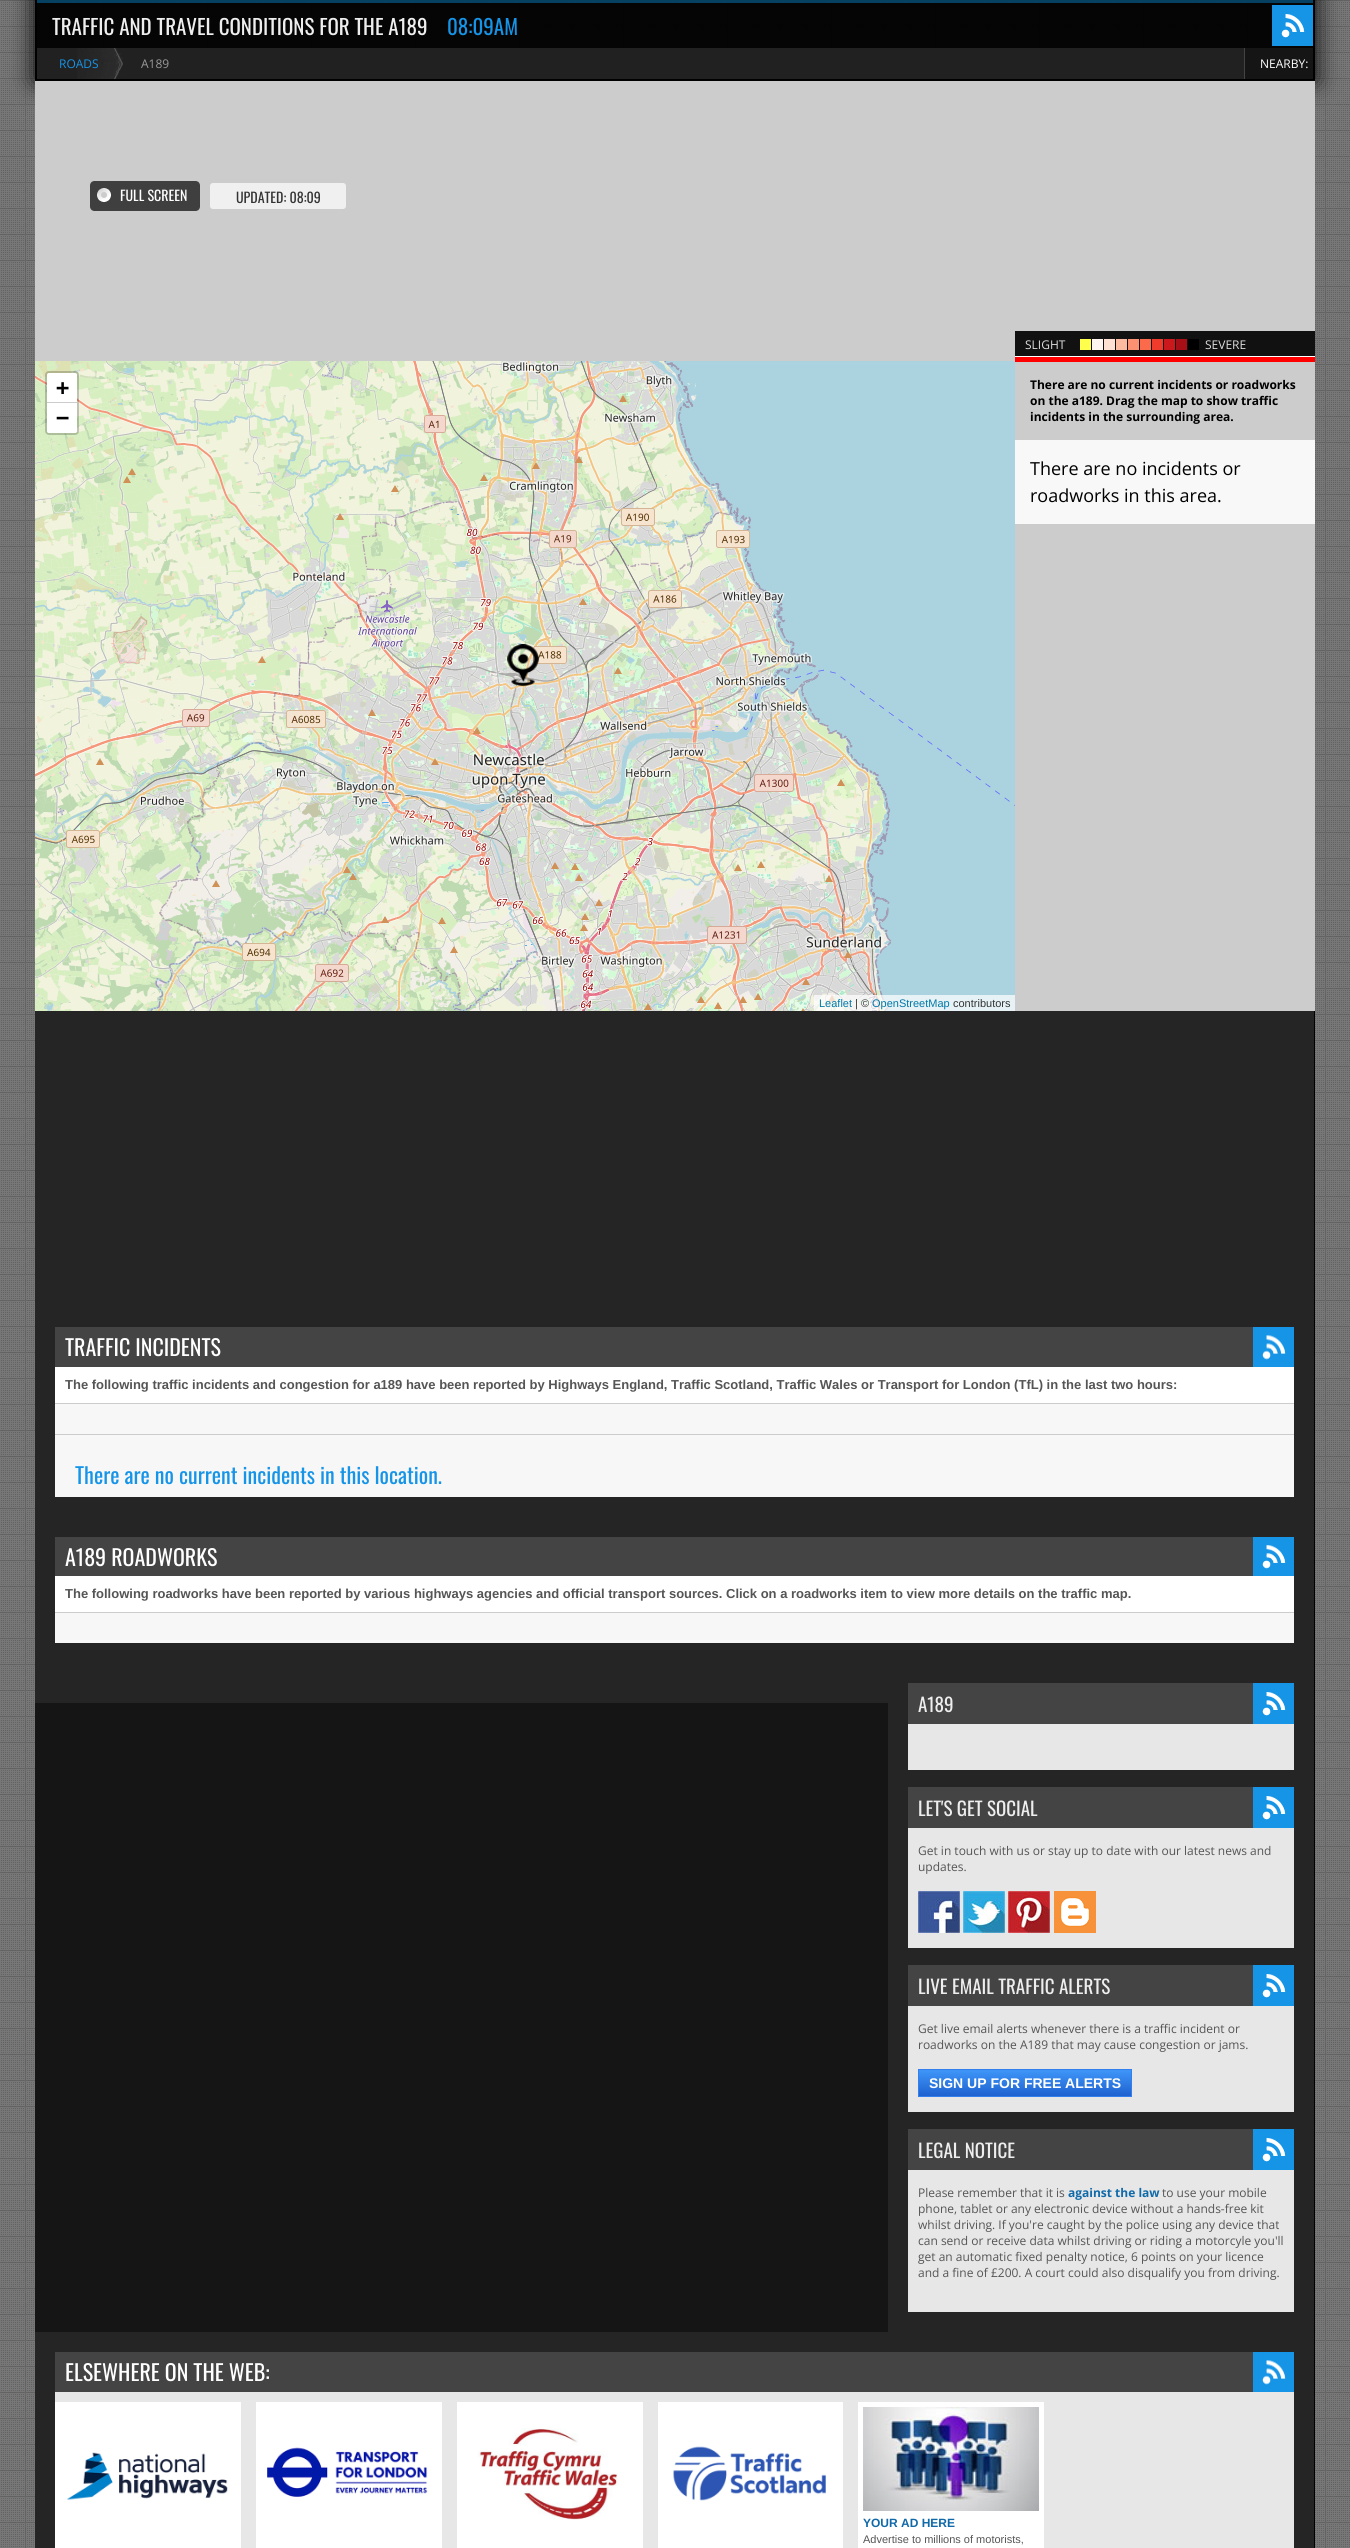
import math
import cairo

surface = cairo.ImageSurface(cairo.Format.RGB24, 1350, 2548)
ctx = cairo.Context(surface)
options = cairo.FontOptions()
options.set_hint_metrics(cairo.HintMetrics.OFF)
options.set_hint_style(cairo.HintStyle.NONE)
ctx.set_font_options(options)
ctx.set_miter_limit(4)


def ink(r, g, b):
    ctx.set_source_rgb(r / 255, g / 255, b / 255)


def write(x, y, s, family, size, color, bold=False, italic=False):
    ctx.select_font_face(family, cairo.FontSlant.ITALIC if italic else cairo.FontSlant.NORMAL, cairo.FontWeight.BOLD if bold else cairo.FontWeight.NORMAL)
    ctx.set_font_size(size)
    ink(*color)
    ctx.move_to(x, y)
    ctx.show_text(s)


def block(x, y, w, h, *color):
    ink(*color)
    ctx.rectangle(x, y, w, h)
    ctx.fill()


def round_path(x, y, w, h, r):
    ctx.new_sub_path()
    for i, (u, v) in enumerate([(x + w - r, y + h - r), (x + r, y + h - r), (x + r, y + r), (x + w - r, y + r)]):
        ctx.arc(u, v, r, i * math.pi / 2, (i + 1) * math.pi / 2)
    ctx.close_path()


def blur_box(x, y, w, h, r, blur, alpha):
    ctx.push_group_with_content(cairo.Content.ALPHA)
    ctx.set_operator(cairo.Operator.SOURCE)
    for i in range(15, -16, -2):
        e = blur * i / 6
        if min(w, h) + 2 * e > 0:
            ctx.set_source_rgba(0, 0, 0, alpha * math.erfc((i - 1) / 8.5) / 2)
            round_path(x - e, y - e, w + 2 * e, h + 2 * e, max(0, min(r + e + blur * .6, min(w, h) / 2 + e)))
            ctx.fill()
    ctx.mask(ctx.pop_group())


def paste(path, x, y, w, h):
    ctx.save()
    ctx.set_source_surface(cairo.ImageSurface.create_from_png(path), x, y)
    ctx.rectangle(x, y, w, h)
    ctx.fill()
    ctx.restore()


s1 = dict(family="Oswald", size=21, color=(238, 238, 238))
s2 = dict(family="Oswald", size=21, color=(22, 148, 231))
s3 = dict(family="Open Sans", size=12, color=(22, 148, 231))
s4 = dict(family="Open Sans", size=12, color=(153, 153, 153))
s5 = dict(family="Open Sans", size=12, color=(255, 255, 255))
s6 = dict(family="Oswald", size=14, color=(255, 255, 255))
s7 = dict(family="Oswald", size=14, color=(51, 51, 51))
s8 = dict(family="DejaVu Sans Mono", size=22, color=(0, 0, 0), bold=True)
s9 = dict(family="Liberation Sans", size=11, color=(0, 120, 168))
s10 = dict(family="Liberation Sans", size=11, color=(51, 51, 51))
s11 = dict(family="Open Sans", size=12, color=(221, 221, 221))
s12 = dict(family="Open Sans", size=12, color=(0, 0, 0), bold=True)
s13 = dict(family="Open Sans", size=18, color=(0, 0, 0))
s14 = dict(family="Oswald", size=22, color=(255, 255, 255))
s15 = dict(family="Liberation Sans", size=13, color=(85, 85, 85), bold=True)
s16 = dict(family="Oswald", size=22, color=(22, 148, 231))
s17 = dict(family="Oswald", size=19, color=(238, 238, 238))
s18 = dict(family="Open Sans", size=12, color=(85, 85, 85))
s19 = dict(family="Liberation Sans", size=14, color=(255, 255, 255), bold=True)
s20 = dict(family="Open Sans", size=12, color=(16, 106, 169), bold=True)
s21 = dict(family="Liberation Sans", size=12, color=(16, 106, 169), bold=True)
s22 = dict(family="Liberation Sans", size=11, color=(85, 85, 85))

ink(255, 255, 255)
ctx.paint()
paste("pic1.png", 0, 0, 1350, 2548)
ctx.save()
ctx.set_fill_rule(cairo.FillRule.EVEN_ODD)
ctx.new_path()
ctx.move_to(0, 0)
ctx.line_to(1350, 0)
ctx.line_to(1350, 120)
ctx.line_to(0, 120)
ctx.close_path()
ctx.move_to(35, -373)
ctx.line_to(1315, -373)
ctx.line_to(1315, 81)
ctx.line_to(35, 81)
ctx.close_path()
ctx.clip()
ink(0, 0, 0)
blur_box(35, -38, 1280, 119, 0, 12.5, 1)
ctx.restore()
ctx.rectangle(36, -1, 1278, 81)
ink(0, 0, 0)
ctx.stroke()
block(37, 0, 1276, 3, 7, 65, 98)
ctx.set_source_rgba(0, 0, 0, 0.8)
ctx.rectangle(37, 3, 1276, 45)
ctx.fill()
ctx.rectangle(37, 3, 1276, 45)
ctx.fill()
paste("pic2.png", 1272, 5, 41, 41)
write(52, 35, "TRAFFIC AND TRAVEL CONDITIONS FOR THE A189", **s1)
write(447, 35, "08:09AM", **s2)
block(37, 48, 1207, 31, 33, 33, 33)
paste("pic3.png", 77, 48, 46, 31)
write(59, 68, "ROADS", **s3)
write(141, 68, "A189", **s4)
block(1245, 48, 68, 31, 21, 21, 21)
block(1244, 48, 1, 31, 68, 68, 68)
write(1260, 68, "NEARBY:", **s5)
block(35, 81, 1280, 930, 204, 204, 204)
paste("pic4.png", 90, 181, 110, 30)
write(120, 201, "FULL SCREEN", **s6)
ink(240, 240, 240)
round_path(209, 182, 138, 28, 4)
ctx.fill_preserve()
ink(204, 204, 204)
ctx.stroke()
write(236, 203, "UPDATED: 08:09", **s7)
paste("pic5.png", 35, 361, 7, 143)
paste("pic6.png", 42, 361, 256, 143)
paste("pic7.png", 298, 361, 256, 143)
paste("pic8.png", 554, 361, 256, 143)
block(810, 361, 205, 143, 170, 211, 223)
paste("pic9.png", 35, 504, 7, 256)
paste("pic10.png", 42, 504, 256, 256)
paste("pic11.png", 298, 504, 256, 256)
paste("pic12.png", 554, 504, 256, 256)
paste("pic13.png", 810, 504, 205, 256)
paste("pic14.png", 35, 760, 7, 251)
paste("pic15.png", 42, 760, 256, 251)
paste("pic16.png", 298, 760, 256, 251)
paste("pic17.png", 554, 760, 256, 251)
paste("pic18.png", 810, 760, 205, 251)
paste("pic19.png", 507, 644, 32, 42)
round_path(46, 372, 32, 62, 3)
ctx.set_source_rgba(0, 0, 0, 0.2)
ctx.stroke()
ink(255, 255, 255)
ctx.new_path()
ctx.move_to(49, 373)
ctx.line_to(75, 373)
ctx.curve_to(76, 373, 77, 374, 77, 375)
ctx.line_to(77, 403)
ctx.line_to(47, 403)
ctx.line_to(47, 375)
ctx.curve_to(47, 374, 48, 373, 49, 373)
ctx.close_path()
ctx.fill()
block(47, 402, 30, 1, 204, 204, 204)
write(56, 395, "+", **s8)
ink(255, 255, 255)
ctx.new_path()
ctx.move_to(47, 403)
ctx.line_to(77, 403)
ctx.line_to(77, 431)
ctx.curve_to(77, 432, 76, 433, 75, 433)
ctx.line_to(49, 433)
ctx.curve_to(48, 433, 47, 432, 47, 431)
ctx.close_path()
ctx.fill()
write(56, 425, "−", **s8)
ctx.set_source_rgba(1, 1, 1, 0.7)
ctx.rectangle(814, 995, 201, 16)
ctx.fill()
write(819, 1007, "Leaflet", **s9)
write(855, 1007, "| ©", **s10)
write(872, 1007, "OpenStreetMap", **s9)
write(953, 1007, "contributors", **s10)
block(1015, 331, 300, 25, 17, 17, 17)
block(1015, 356, 300, 1, 255, 255, 255)
write(1025, 349, "SLIGHT", **s11)
block(1080, 339, 11, 11, 255, 255, 76)
block(1092, 339, 11, 11, 255, 245, 240)
block(1104, 339, 11, 11, 254, 224, 210)
block(1116, 339, 11, 11, 252, 187, 161)
block(1128, 339, 11, 11, 252, 146, 114)
block(1140, 339, 11, 11, 251, 106, 74)
block(1152, 339, 11, 11, 239, 59, 44)
block(1164, 339, 11, 11, 203, 24, 29)
block(1176, 339, 11, 11, 165, 15, 21)
block(1188, 339, 11, 11, 0, 0, 0)
write(1205, 349, "SEVERE", **s11)
block(1015, 357, 300, 5, 255, 0, 0)
write(1030, 389, "There are no current incidents or roadworks", **s12)
write(1030, 405, "on the a189. Drag the map to show traffic", **s12)
write(1030, 421, "incidents in the surrounding area.", **s12)
block(1015, 440, 300, 84, 248, 248, 248)
write(1030, 475, "There are no incidents or", **s13)
write(1030, 502, "roadworks in this area.", **s13)
block(1314, 1011, 1, 1537, 0, 0, 0)
block(35, 1011, 1279, 652, 37, 37, 37)
block(55, 1327, 1198, 40, 68, 68, 68)
paste("pic20.png", 1253, 1327, 41, 40)
write(65, 1356, "TRAFFIC INCIDENTS", **s14)
block(55, 1367, 1239, 36, 255, 255, 255)
write(65, 1389, "The following traffic incidents and congestion for a189 have been reported by Highways England, Traffic Scotland, Traffic Wales or Transport for London (TfL) in the last two hours:", **s15)
block(55, 1404, 1239, 30, 247, 247, 247)
block(55, 1403, 1239, 1, 204, 204, 204)
block(55, 1435, 1239, 62, 247, 247, 247)
block(55, 1434, 1239, 1, 204, 204, 204)
write(75, 1484, "There are no current incidents in this location.", **s16)
block(55, 1537, 1198, 39, 68, 68, 68)
paste("pic21.png", 1253, 1537, 41, 39)
write(65, 1566, "A189 ROADWORKS", **s14)
block(55, 1576, 1239, 36, 255, 255, 255)
write(65, 1598, "The following roadworks have been reported by various highways agencies and official transport sources. Click on a roadworks item to view more details on the traffic map.", **s15)
block(55, 1613, 1239, 30, 247, 247, 247)
block(55, 1612, 1239, 1, 204, 204, 204)
block(35, 1703, 853, 629, 21, 21, 21)
block(35, 1663, 853, 40, 37, 37, 37)
block(888, 1663, 426, 669, 37, 37, 37)
block(908, 1683, 345, 41, 68, 68, 68)
paste("pic2.png", 1253, 1683, 41, 41)
write(918, 1712, "A189", **s17)
block(908, 1724, 386, 46, 231, 231, 231)
block(908, 1787, 345, 41, 68, 68, 68)
paste("pic2.png", 1253, 1787, 41, 41)
write(918, 1816, "LET'S GET SOCIAL", **s17)
block(908, 1828, 386, 120, 231, 231, 231)
write(918, 1855, "Get in touch with us or stay up to date with our latest news and", **s18)
write(918, 1871, "updates.", **s18)
paste("pic22.png", 918, 1891, 42, 42)
paste("pic23.png", 963, 1891, 42, 42)
paste("pic24.png", 1008, 1891, 42, 42)
paste("pic25.png", 1054, 1891, 42, 42)
block(908, 1965, 345, 41, 68, 68, 68)
paste("pic2.png", 1253, 1965, 41, 41)
write(918, 1994, "LIVE EMAIL TRAFFIC ALERTS", **s17)
block(908, 2006, 386, 106, 231, 231, 231)
write(918, 2033, "Get live email alerts whenever there is a traffic incident or", **s18)
write(918, 2049, "roadworks on the A189 that may cause congestion or jams.", **s18)
gradient = cairo.LinearGradient(919, 2070, 919, 2096)
gradient.add_color_stop_rgba(0.05, 0.239, 0.58, 0.965, 1)
gradient.add_color_stop_rgba(1, 0.118, 0.384, 0.816, 1)
ctx.set_source(gradient)
ctx.rectangle(919, 2070, 212, 26)
ctx.fill()
ctx.rectangle(918.5, 2069.5, 213, 27)
ink(51, 127, 237)
ctx.set_line_width(1)
ctx.stroke()
write(929, 2088, "SIGN UP FOR FREE ALERTS", **s19)
block(908, 2129, 345, 41, 68, 68, 68)
paste("pic2.png", 1253, 2129, 41, 41)
write(918, 2158, "LEGAL NOTICE", **s17)
block(908, 2170, 386, 142, 231, 231, 231)
write(918, 2197, "Please remember that it is", **s18)
write(1068, 2197, "against the law", **s20)
write(1162, 2197, "to use your mobile", **s18)
write(918, 2213, "phone, tablet or any electronic device without a hands-free kit", **s18)
write(918, 2229, "whilst driving. If you're caught by the police using any device that", **s18)
write(918, 2245, "can send or receive data whilst driving or riding a motorcyle you'll", **s18)
write(918, 2261, "get an automatic fixed penalty notice, 6 points on your licence", **s18)
write(918, 2277, "and a fine of £200. A court could also disqualify you from driving.", **s18)
block(35, 2332, 1279, 216, 37, 37, 37)
block(55, 2352, 1198, 40, 68, 68, 68)
paste("pic20.png", 1253, 2352, 41, 40)
write(65, 2381, "ELSEWHERE ON THE WEB:", **s14)
block(55, 2392, 1239, 156, 231, 231, 231)
block(55, 2402, 186, 146, 255, 255, 255)
paste("pic26.png", 66, 2452, 162, 48)
block(256, 2402, 186, 146, 255, 255, 255)
paste("pic27.png", 267, 2447, 161, 50)
block(457, 2402, 186, 146, 255, 255, 255)
paste("pic28.png", 477, 2428, 141, 92)
block(658, 2402, 185, 146, 255, 255, 255)
paste("pic29.png", 673, 2446, 153, 55)
block(858, 2402, 186, 146, 255, 255, 255)
paste("pic30.png", 863, 2407, 176, 104)
write(863, 2527, "YOUR AD HERE", **s21)
write(863, 2543, "Advertise to millions of motorists,", **s22)
surface.write_to_png("screenshot.png")
